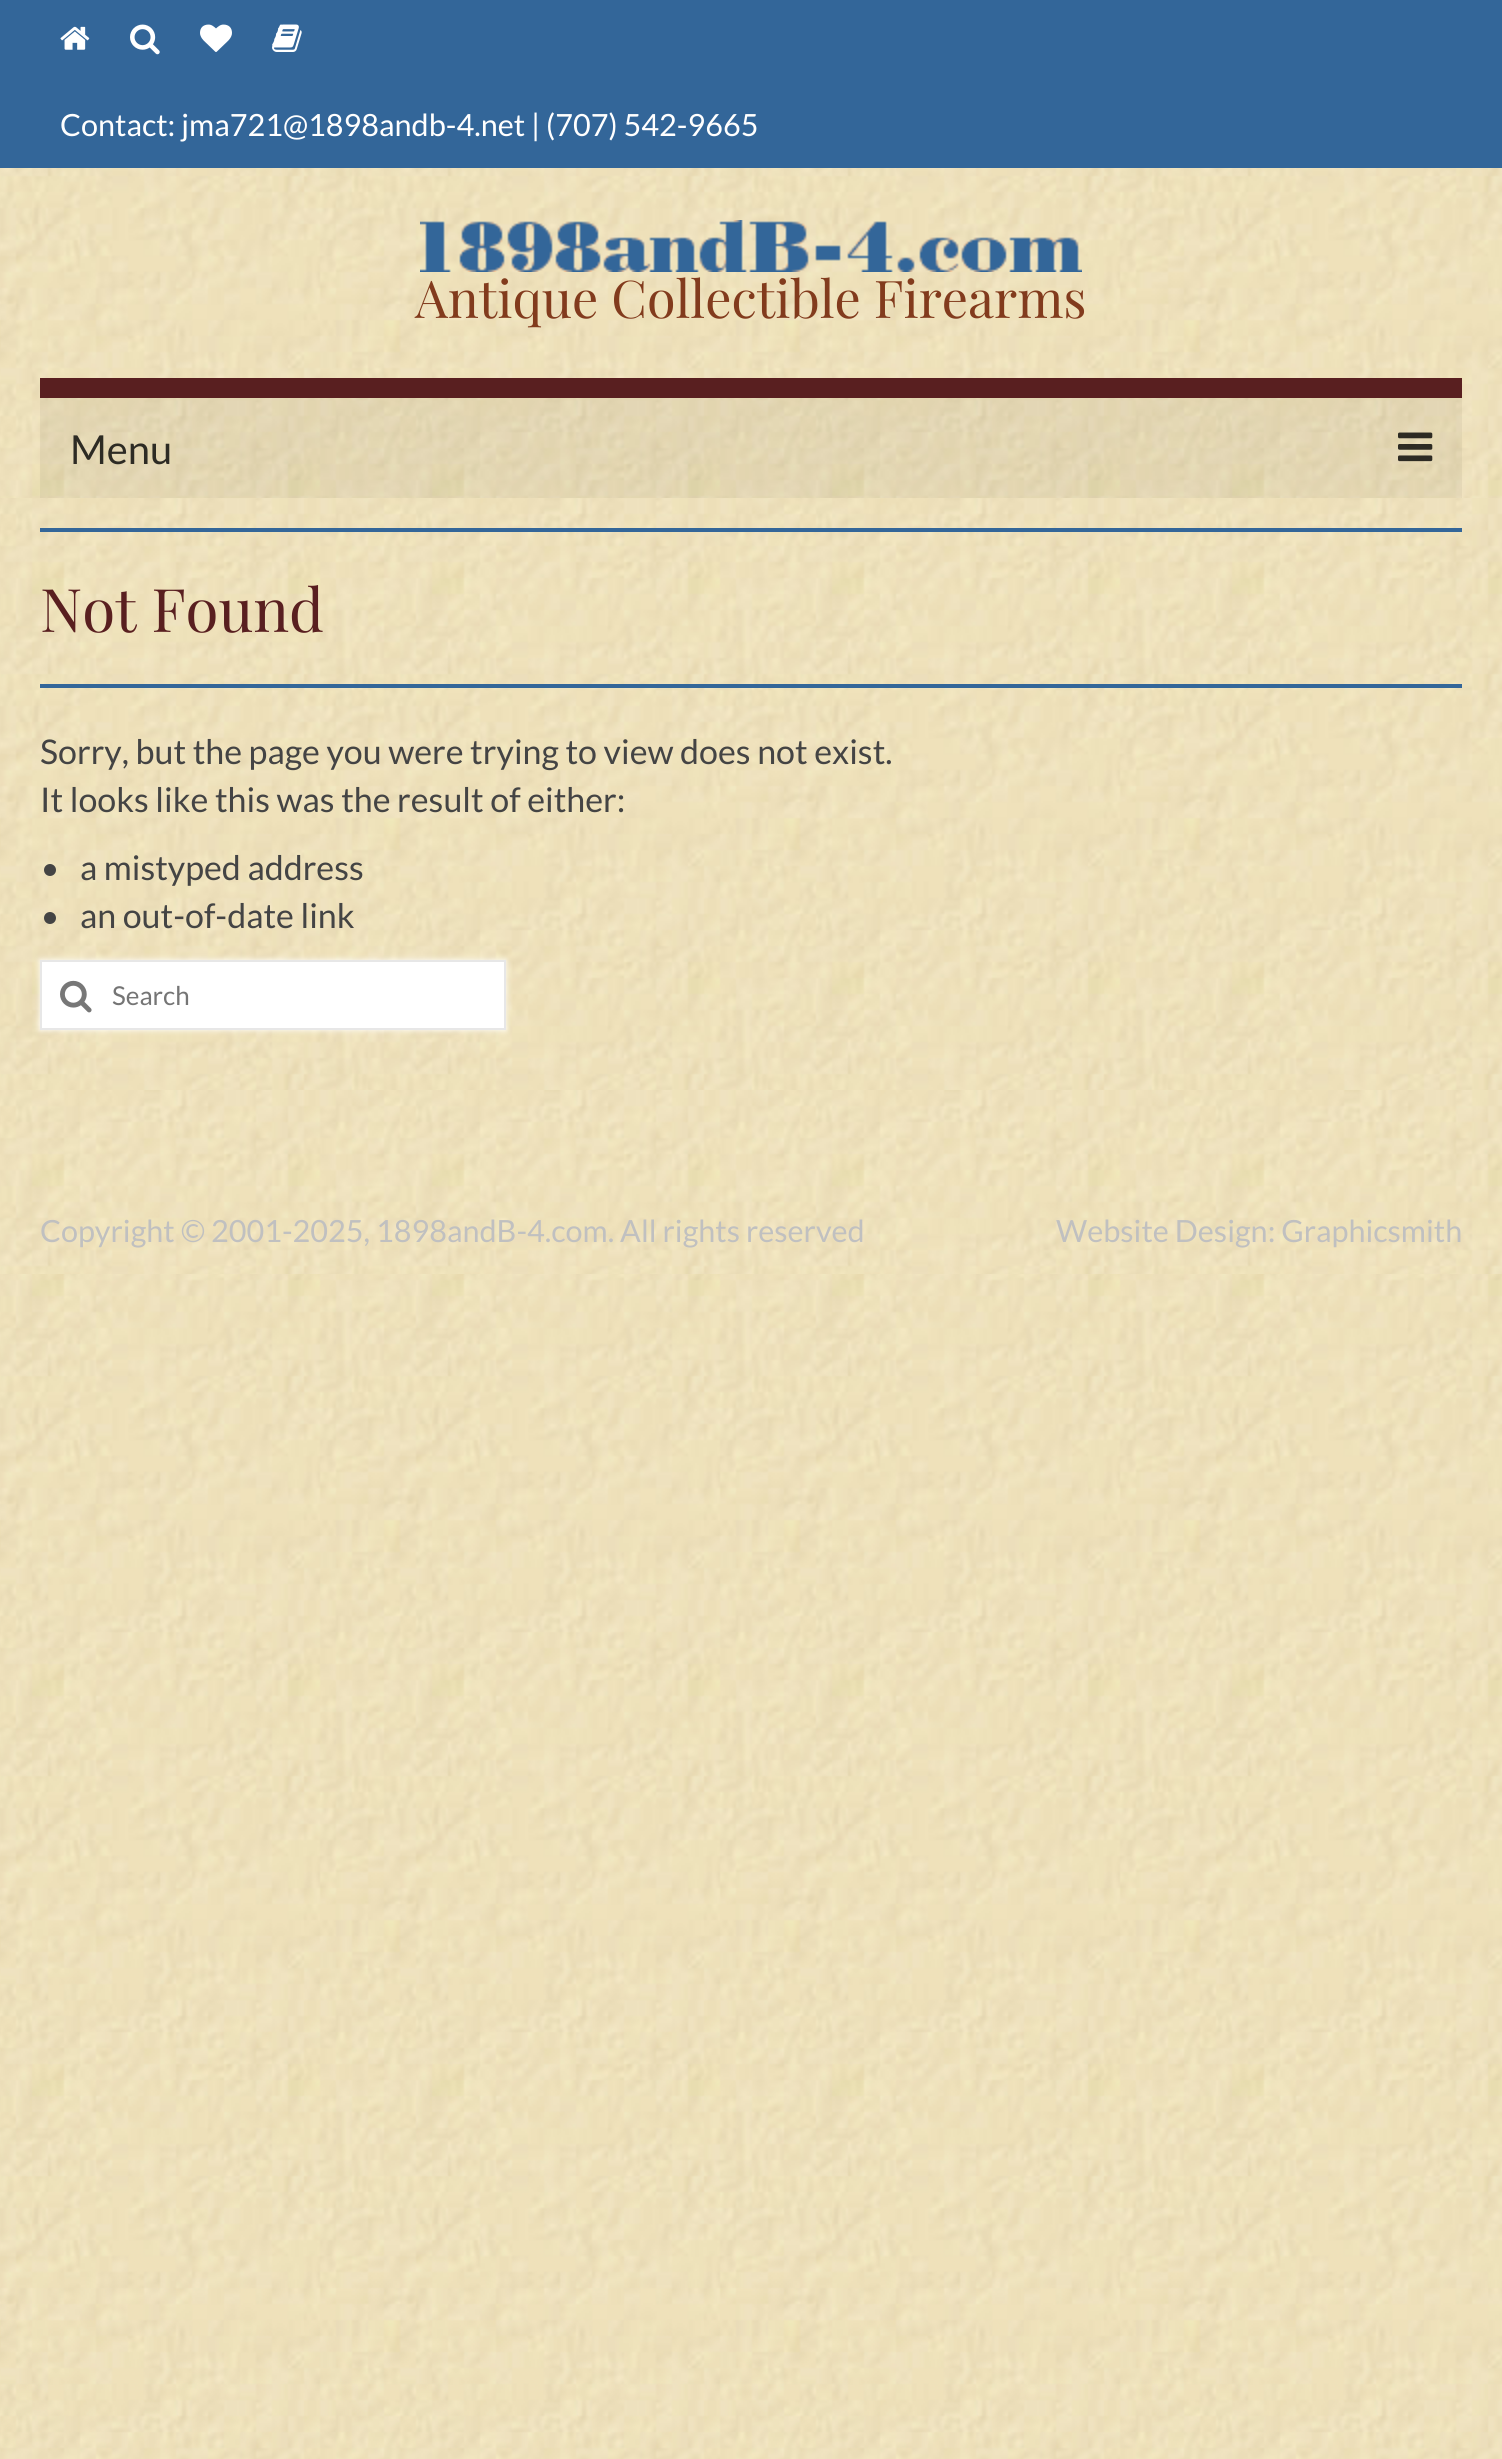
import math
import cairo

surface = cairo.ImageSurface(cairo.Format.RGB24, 1502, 2459)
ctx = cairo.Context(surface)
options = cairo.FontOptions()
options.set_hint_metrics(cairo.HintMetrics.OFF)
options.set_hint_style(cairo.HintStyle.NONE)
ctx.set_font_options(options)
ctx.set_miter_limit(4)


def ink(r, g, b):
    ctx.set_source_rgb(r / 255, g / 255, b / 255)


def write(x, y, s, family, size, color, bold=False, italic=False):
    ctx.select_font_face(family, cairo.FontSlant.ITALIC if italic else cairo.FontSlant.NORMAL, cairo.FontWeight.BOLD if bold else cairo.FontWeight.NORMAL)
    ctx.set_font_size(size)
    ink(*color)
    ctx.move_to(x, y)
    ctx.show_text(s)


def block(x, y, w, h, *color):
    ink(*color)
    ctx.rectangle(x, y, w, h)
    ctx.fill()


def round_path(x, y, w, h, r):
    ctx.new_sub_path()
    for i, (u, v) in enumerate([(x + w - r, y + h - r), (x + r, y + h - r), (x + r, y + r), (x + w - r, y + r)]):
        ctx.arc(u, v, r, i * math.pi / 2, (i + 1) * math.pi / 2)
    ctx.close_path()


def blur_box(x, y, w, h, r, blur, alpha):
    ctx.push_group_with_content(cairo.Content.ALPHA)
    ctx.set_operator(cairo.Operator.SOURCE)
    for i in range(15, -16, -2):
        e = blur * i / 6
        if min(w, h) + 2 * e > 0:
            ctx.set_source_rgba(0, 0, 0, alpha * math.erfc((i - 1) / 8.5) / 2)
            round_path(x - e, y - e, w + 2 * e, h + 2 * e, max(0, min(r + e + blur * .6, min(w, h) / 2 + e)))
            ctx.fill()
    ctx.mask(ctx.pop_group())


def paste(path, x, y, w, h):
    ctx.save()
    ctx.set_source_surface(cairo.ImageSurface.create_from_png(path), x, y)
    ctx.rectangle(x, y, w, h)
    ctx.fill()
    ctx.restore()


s1 = dict(family="Lato", size=30.6, color=(255, 255, 255))
s2 = dict(family="Playfair Display", size=52, color=(130, 59, 29))
s3 = dict(family="Lato", size=40, color=(45, 43, 36))
s4 = dict(family="Playfair Display", size=60, color=(89, 31, 32))
s5 = dict(family="Lato", size=34, color=(68, 68, 68))
s6 = dict(family="Lato", size=26, color=(117, 117, 117))
s7 = dict(family="Lato", size=30.6, color=(192, 192, 192))

ink(255, 255, 255)
ctx.paint()
paste("pic1.png", 0, 168, 1502, 2291)
block(0, 0, 1502, 168, 51, 102, 153)
paste("pic2.png", 60, 26, 30, 24)
paste("pic3.png", 130, 24, 30, 31)
paste("pic4.png", 200, 24, 32, 28)
paste("pic5.png", 272, 24, 30, 28)
write(60, 136, "Contact: jma721@1898andb-4.net | (707) 542-9665", **s1)
paste("pic6.png", 420, 220, 662, 52)
write(415, 318, "Antique Collectible Firearms", **s2)
block(40, 378, 1422, 20, 89, 31, 32)
ctx.set_source_rgba(0, 0, 0, 0.05)
ctx.rectangle(40, 398, 1422, 100)
ctx.fill()
write(70, 464, "Menu", **s3)
paste("pic7.png", 1398, 432, 35, 30)
paste("pic8.png", 0, 498, 1502, 592)
block(40, 528, 1422, 4, 51, 102, 153)
block(40, 684, 1422, 4, 51, 102, 153)
write(40, 632, "Not Found", **s4)
write(40, 764, "Sorry, but the page you were trying to view does not exist.", **s5)
write(40, 812, "It looks like this was the result of either:", **s5)
ctx.new_path()
ctx.arc(50, 870, 6, 0, 2 * math.pi)
ctx.fill()
write(80, 880, "a mistyped address", **s5)
ctx.new_path()
ctx.arc(50, 918, 6, 0, 2 * math.pi)
ctx.fill()
write(80, 928, "an out-of-date link", **s5)
ink(255, 255, 255)
blur_box(40, 960, 466, 70, 0, 3, 1)
ink(255, 255, 255)
ctx.rectangle(41, 961, 464, 68)
ctx.fill_preserve()
ink(231, 231, 231)
ctx.stroke()
paste("pic9.png", 60, 980, 32, 33)
write(112, 1005, "Search", **s6)
paste("pic10.png", 0, 1090, 1502, 184)
write(40, 1242, "Copyright © 2001-2025, 1898andB-4.com. All rights reserved", **s7)
write(1056, 1242, "Website Design: Graphicsmith", **s7)
surface.write_to_png("screenshot.png")
